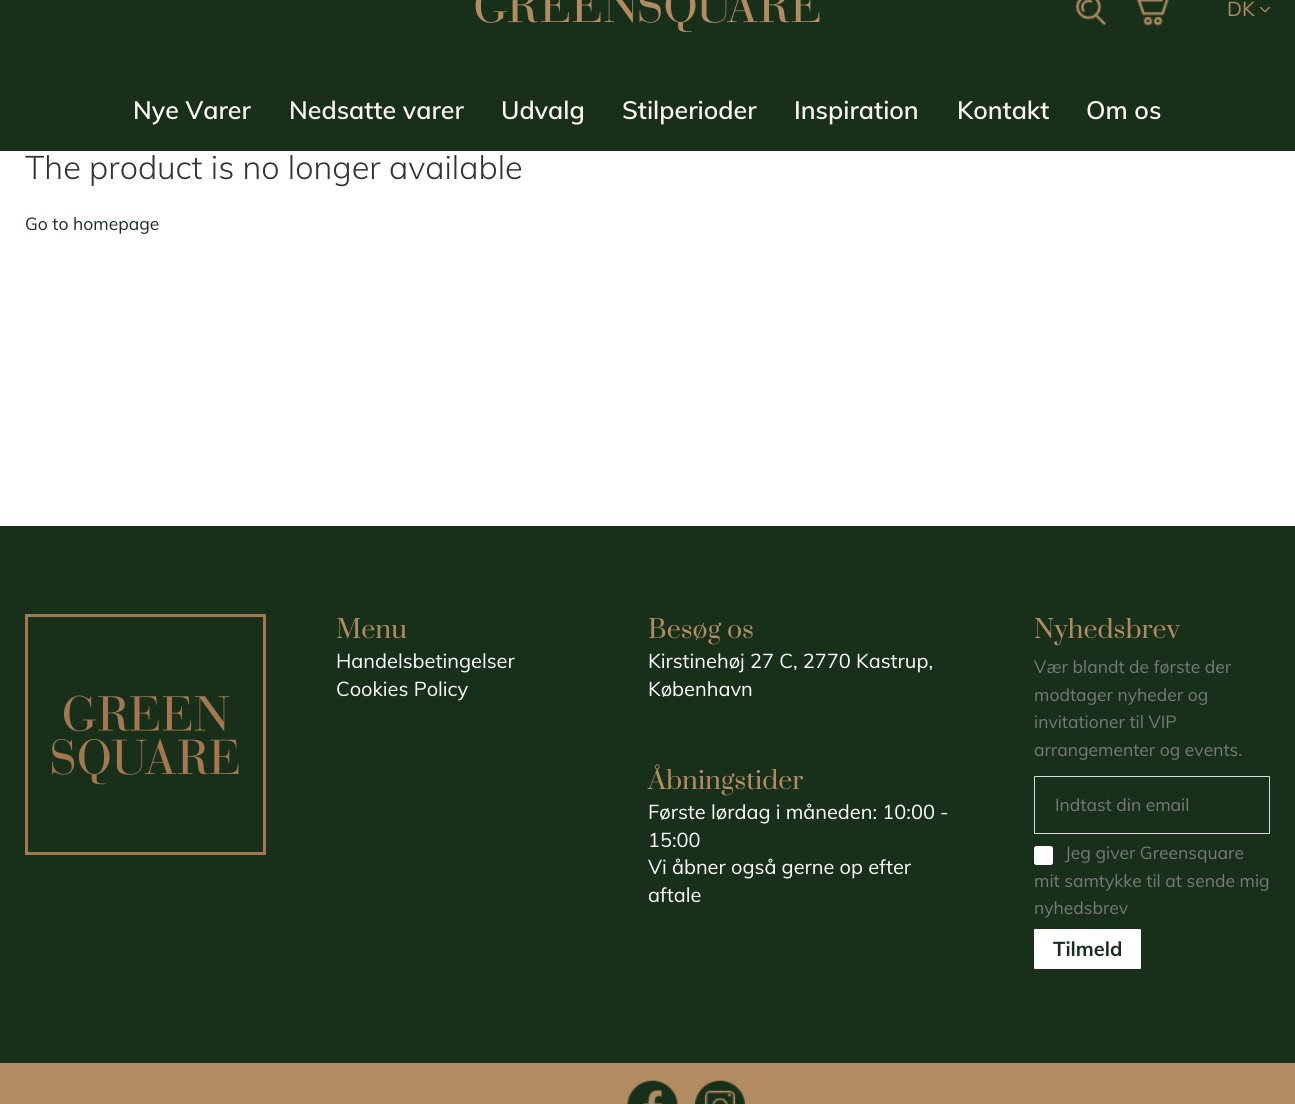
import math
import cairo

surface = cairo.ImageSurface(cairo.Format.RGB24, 1295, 1104)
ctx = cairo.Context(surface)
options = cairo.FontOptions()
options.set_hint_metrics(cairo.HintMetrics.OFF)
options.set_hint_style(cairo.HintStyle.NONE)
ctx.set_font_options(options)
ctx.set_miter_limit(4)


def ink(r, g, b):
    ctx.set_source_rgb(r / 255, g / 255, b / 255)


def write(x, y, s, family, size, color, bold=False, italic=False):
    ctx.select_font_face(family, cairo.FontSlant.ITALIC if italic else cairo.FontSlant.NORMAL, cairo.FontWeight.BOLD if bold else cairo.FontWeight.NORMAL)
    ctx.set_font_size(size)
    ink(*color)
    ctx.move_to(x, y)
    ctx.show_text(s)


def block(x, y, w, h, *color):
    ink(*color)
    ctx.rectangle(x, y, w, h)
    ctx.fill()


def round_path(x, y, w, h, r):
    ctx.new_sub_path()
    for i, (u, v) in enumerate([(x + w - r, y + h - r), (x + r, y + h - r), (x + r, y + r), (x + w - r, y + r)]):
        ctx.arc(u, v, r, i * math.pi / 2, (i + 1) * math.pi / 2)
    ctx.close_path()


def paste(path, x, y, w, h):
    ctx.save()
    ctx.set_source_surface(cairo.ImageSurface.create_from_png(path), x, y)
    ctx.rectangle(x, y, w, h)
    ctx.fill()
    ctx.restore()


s1 = dict(family="Muli", size=20, color=(177, 140, 99))
s2 = dict(family="Muli SemiBold", size=25, color=(255, 247, 239))
s3 = dict(family="Muli Light", size=32.5, color=(51, 51, 51))
s4 = dict(family="Muli", size=17.5, color=(24, 48, 25))
s5 = dict(family="Prata", size=25, color=(177, 140, 99))
s6 = dict(family="Muli", size=20, color=(255, 255, 255))
s7 = dict(family="Muli", size=17.5, color=(121, 121, 121))
s8 = dict(family="Muli", size=20, color=(24, 48, 25), bold=True)

ink(255, 255, 255)
ctx.paint()
block(0, 0, 1295, 151, 24, 48, 25)
paste("pic1.png", 475, 0, 345, 33)
paste("pic2.png", 1076, 0, 31, 26)
paste("pic3.png", 1137, 0, 32, 26)
write(1227, 16, "DK", **s1)
paste("pic4.png", 1259, 6, 12, 7)
write(133, 119, "Nye Varer", **s2)
write(289, 119, "Nedsatte varer", **s2)
write(501, 119, "Udvalg", **s2)
write(622, 119, "Stilperioder", **s2)
write(794, 119, "Inspiration", **s2)
write(957, 119, "Kontakt", **s2)
write(1086, 119, "Om os", **s2)
write(25, 179, "The product is no longer available", **s3)
write(25, 230, "Go to homepage", **s4)
block(0, 526, 1295, 537, 24, 48, 25)
paste("pic5.png", 25, 614, 241, 241)
write(336, 638, "Menu", **s5)
write(336, 668, "Handelsbetingelser", **s6)
write(336, 696, "Cookies Policy", **s6)
write(648, 638, "Besøg os", **s5)
write(648, 668, "Kirstinehøj 27 C, 2770 Kastrup,", **s6)
write(648, 696, "København", **s6)
write(648, 789, "Åbningstider", **s5)
write(648, 819, "Første lørdag i måneden: 10:00 -", **s6)
write(648, 847, "15:00", **s6)
write(648, 874, "Vi åbner også gerne op efter", **s6)
write(648, 902, "aftale", **s6)
write(1034, 638, "Nyhedsbrev", **s5)
write(1034, 673, "Vær blandt de første der", **s7)
write(1034, 701, "modtager nyheder og", **s7)
write(1034, 728, "invitationer til VIP", **s7)
write(1034, 756, "arrangementer og events.", **s7)
round_path(1034.5, 776.5, 235, 57, 0.5)
ink(216, 218, 220)
ctx.set_line_width(1)
ctx.stroke()
write(1055, 811, "Indtast din email", **s7)
ink(255, 255, 255)
round_path(1034.5, 846.5, 18, 18, 2)
ctx.fill_preserve()
ctx.stroke()
write(1065, 859, "Jeg giver Greensquare", **s7)
write(1034, 887, "mit samtykke til at sende mig", **s7)
write(1034, 914, "nyhedsbrev", **s7)
ink(255, 255, 255)
round_path(1034, 929, 107, 40, 1)
ctx.fill()
write(1053, 956, "Tilmeld", **s8)
block(0, 1063, 1295, 41, 177, 140, 99)
paste("pic6.png", 627, 1080, 51, 24)
paste("pic7.png", 695, 1080, 50, 24)
surface.write_to_png("screenshot.png")
